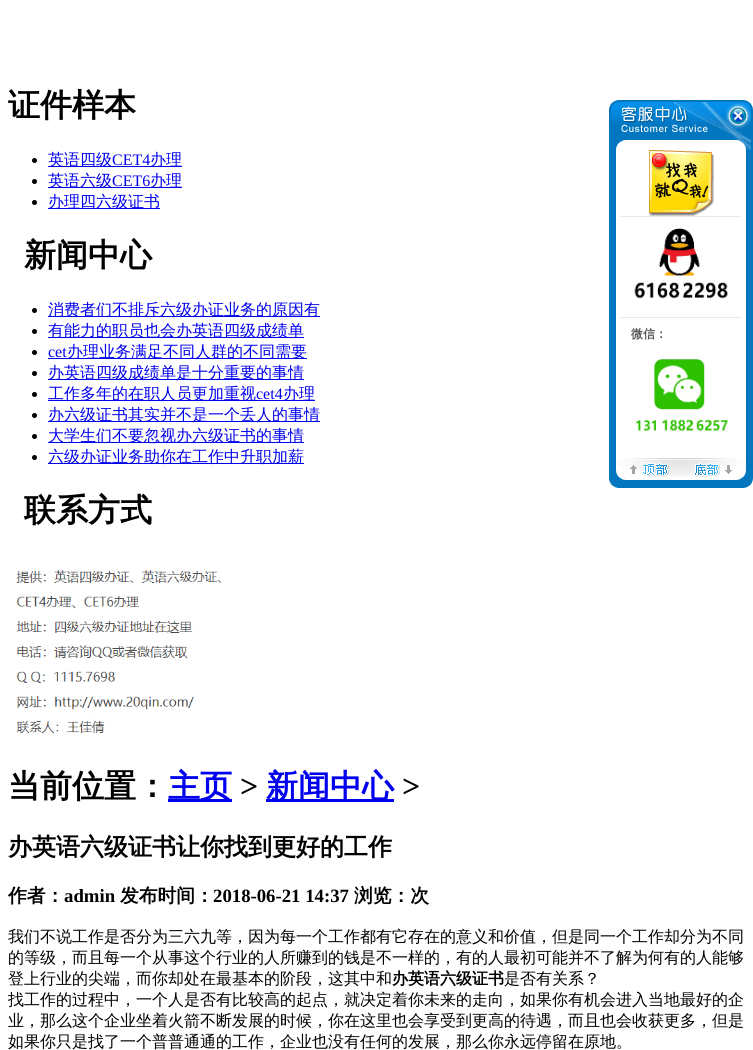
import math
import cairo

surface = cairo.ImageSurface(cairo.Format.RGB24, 753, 1050)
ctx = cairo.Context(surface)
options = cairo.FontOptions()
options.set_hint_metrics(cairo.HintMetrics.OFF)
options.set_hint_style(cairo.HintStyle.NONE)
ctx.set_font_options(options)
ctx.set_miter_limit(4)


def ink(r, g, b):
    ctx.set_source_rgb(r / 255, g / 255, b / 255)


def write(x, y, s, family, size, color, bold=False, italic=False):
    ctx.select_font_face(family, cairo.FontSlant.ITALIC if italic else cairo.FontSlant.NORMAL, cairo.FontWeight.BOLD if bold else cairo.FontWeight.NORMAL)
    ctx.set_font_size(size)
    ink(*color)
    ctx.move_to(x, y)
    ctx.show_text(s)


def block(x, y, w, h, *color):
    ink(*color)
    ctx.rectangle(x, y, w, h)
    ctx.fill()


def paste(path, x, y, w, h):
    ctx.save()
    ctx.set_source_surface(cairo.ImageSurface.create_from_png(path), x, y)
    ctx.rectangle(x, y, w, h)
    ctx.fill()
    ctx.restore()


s1 = dict(family="WenQuanYi Zen Hei", size=32, color=(0, 0, 0), bold=True)
s2 = dict(family="WenQuanYi Zen Hei Medium", size=16, color=(0, 0, 238))
s3 = dict(family="Liberation Serif", size=16, color=(0, 0, 238))
s4 = dict(family="WenQuanYi Zen Hei", size=32, color=(0, 0, 238), bold=True)
s5 = dict(family="Liberation Serif", size=32, color=(0, 0, 0), bold=True)
s6 = dict(family="WenQuanYi Zen Hei", size=24, color=(0, 0, 0), bold=True)
s7 = dict(family="WenQuanYi Zen Hei", size=18.75, color=(0, 0, 0), bold=True)
s8 = dict(family="Liberation Serif", size=18.75, color=(0, 0, 0), bold=True)
s9 = dict(family="WenQuanYi Zen Hei Medium", size=16, color=(0, 0, 0))
s10 = dict(family="WenQuanYi Zen Hei", size=16, color=(0, 0, 0), bold=True)
s11 = dict(family="WenQuanYi Zen Hei", size=12, color=(85, 85, 85), bold=True)

ink(255, 255, 255)
ctx.paint()
write(8, 116, "证件样本", **s1)
ctx.new_path()
ctx.arc(34.5, 160.5, 2.5, 0, 2 * math.pi)
ctx.fill()
block(48, 166, 134, 1, 0, 0, 238)
write(48, 165, "英语四级", **s2)
write(112, 165, "CET4", **s3)
write(150, 165, "办理", **s2)
ink(0, 0, 0)
ctx.new_path()
ctx.arc(34.5, 181.5, 2.5, 0, 2 * math.pi)
ctx.fill()
block(48, 187, 134, 1, 0, 0, 238)
write(48, 186, "英语六级", **s2)
write(112, 186, "CET6", **s3)
write(150, 186, "办理", **s2)
ink(0, 0, 0)
ctx.new_path()
ctx.arc(34.5, 202.5, 2.5, 0, 2 * math.pi)
ctx.fill()
block(48, 208, 112, 1, 0, 0, 238)
write(48, 207, "办理四六级证书", **s2)
write(24, 266, "新闻中心", **s1)
ctx.new_path()
ctx.arc(34.5, 310.5, 2.5, 0, 2 * math.pi)
ctx.fill()
block(48, 316, 272, 1, 0, 0, 238)
write(48, 315, "消费者们不排斥六级办证业务的原因有", **s2)
ink(0, 0, 0)
ctx.new_path()
ctx.arc(34.5, 331.5, 2.5, 0, 2 * math.pi)
ctx.fill()
block(48, 337, 256, 1, 0, 0, 238)
write(48, 336, "有能力的职员也会办英语四级成绩单", **s2)
ink(0, 0, 0)
ctx.new_path()
ctx.arc(34.5, 352.5, 2.5, 0, 2 * math.pi)
ctx.fill()
write(48, 357, "cet", **s3)
block(48, 358, 259, 1, 0, 0, 238)
write(67, 357, "办理业务满足不同人群的不同需要", **s2)
ink(0, 0, 0)
ctx.new_path()
ctx.arc(34.5, 373.5, 2.5, 0, 2 * math.pi)
ctx.fill()
block(48, 379, 256, 1, 0, 0, 238)
write(48, 378, "办英语四级成绩单是十分重要的事情", **s2)
ink(0, 0, 0)
ctx.new_path()
ctx.arc(34.5, 394.5, 2.5, 0, 2 * math.pi)
ctx.fill()
block(48, 400, 267, 1, 0, 0, 238)
write(48, 399, "工作多年的在职人员更加重视", **s2)
write(256, 399, "cet4", **s3)
write(283, 399, "办理", **s2)
ink(0, 0, 0)
ctx.new_path()
ctx.arc(34.5, 415.5, 2.5, 0, 2 * math.pi)
ctx.fill()
block(48, 421, 272, 1, 0, 0, 238)
write(48, 420, "办六级证书其实并不是一个丢人的事情", **s2)
ink(0, 0, 0)
ctx.new_path()
ctx.arc(34.5, 436.5, 2.5, 0, 2 * math.pi)
ctx.fill()
block(48, 442, 256, 1, 0, 0, 238)
write(48, 441, "大学生们不要忽视办六级证书的事情", **s2)
ink(0, 0, 0)
ctx.new_path()
ctx.arc(34.5, 457.5, 2.5, 0, 2 * math.pi)
ctx.fill()
block(48, 463, 256, 1, 0, 0, 238)
write(48, 462, "六级办证业务助你在工作中升职加薪", **s2)
write(24, 521, "联系方式", **s1)
paste("pic1.png", 16, 570, 205, 163)
write(8, 797, "当前位置：", **s1)
block(168, 799, 64, 3, 0, 0, 238)
write(168, 797, "主页", **s4)
write(240, 797, ">", **s5)
block(266, 799, 128, 3, 0, 0, 238)
write(266, 797, "新闻中心", **s4)
write(402, 797, ">", **s5)
write(8, 855, "办英语六级证书让你找到更好的工作", **s6)
write(8, 902, "作者：", **s7)
write(64, 902, "admin", **s8)
write(120, 902, "发布时间：", **s7)
write(213, 902, "2018-06-21 14:37", **s8)
write(354, 902, "浏览：次", **s7)
write(8, 942, "我们不说工作是否分为三六九等，因为每一个工作都有它存在的意义和价值，但是同一个工作却分为不同", **s9)
write(8, 963, "的等级，而且每一个从事这个行业的人所赚到的钱是不一样的，有的人最初可能并不了解为何有的人能够", **s9)
write(8, 984, "登上行业的尖端，而你却处在最基本的阶段，这其中和", **s9)
write(392, 984, "办英语六级证书", **s10)
write(504, 984, "是否有关系？", **s9)
write(8, 1005, "找工作的过程中，一个人是否有比较高的起点，就决定着你未来的走向，如果你有机会进入当地最好的企", **s9)
write(8, 1026, "业，那么这个企业坐着火箭不断发展的时候，你在这里也会享受到更高的待遇，而且也会收获更多，但是", **s9)
write(8, 1047, "如果你只是找了一个普普通通的工作，企业也没有任何的发展，那么你永远停留在原地。", **s9)
paste("pic2.png", 609, 100, 144, 50)
paste("pic3.png", 609, 150, 144, 298)
block(621, 216, 120, 1, 232, 232, 232)
paste("pic4.png", 649, 150, 65, 66)
block(621, 317, 120, 1, 232, 232, 232)
paste("pic5.png", 634, 228, 94, 71)
write(631, 338, "微信：", **s11)
paste("pic6.png", 635, 359, 94, 73)
paste("pic7.png", 609, 448, 144, 40)
surface.write_to_png("screenshot.png")
